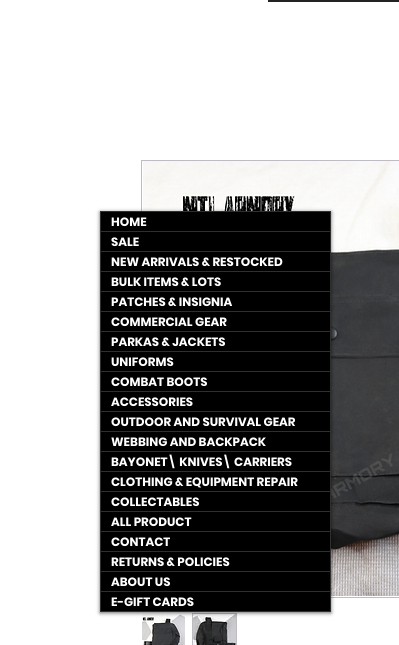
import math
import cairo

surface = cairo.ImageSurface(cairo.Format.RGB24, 399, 645)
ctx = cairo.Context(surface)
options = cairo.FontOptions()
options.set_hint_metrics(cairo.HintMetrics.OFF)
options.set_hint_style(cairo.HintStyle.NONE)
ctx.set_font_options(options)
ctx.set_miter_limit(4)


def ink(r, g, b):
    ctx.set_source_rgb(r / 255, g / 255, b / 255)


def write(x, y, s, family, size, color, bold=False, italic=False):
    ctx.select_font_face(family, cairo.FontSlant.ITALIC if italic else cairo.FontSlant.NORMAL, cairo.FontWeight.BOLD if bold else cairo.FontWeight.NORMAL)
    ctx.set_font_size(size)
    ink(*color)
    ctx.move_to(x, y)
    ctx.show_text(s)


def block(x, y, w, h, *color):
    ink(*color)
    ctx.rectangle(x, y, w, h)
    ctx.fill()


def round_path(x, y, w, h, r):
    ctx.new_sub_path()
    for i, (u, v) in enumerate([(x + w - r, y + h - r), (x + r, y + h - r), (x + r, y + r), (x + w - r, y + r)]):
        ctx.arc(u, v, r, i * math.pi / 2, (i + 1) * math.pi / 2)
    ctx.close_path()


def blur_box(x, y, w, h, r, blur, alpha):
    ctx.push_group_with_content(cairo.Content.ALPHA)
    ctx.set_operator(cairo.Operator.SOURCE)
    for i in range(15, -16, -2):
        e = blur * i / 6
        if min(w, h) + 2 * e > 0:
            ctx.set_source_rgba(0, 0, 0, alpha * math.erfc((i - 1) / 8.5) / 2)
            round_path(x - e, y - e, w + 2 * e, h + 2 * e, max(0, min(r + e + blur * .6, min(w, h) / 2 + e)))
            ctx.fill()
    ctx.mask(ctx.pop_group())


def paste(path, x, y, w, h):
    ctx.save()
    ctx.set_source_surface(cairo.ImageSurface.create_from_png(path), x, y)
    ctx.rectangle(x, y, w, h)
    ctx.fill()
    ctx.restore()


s1 = dict(family="Poppins", size=12, color=(255, 255, 255), bold=True)

ink(255, 255, 255)
ctx.paint()
block(268, 0, 131, 2, 35, 35, 35)
ctx.rectangle(141.5, 160.5, 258, 437)
ink(190, 188, 194)
ctx.set_line_width(1)
ctx.stroke()
paste("pic1.png", 143, 161, 256, 435)
paste("pic2.png", 142, 614, 43, 31)
block(192, 613, 45, 32, 190, 188, 194)
paste("pic3.png", 193, 614, 43, 31)
ink(0, 0, 0)
blur_box(100, 212, 231, 401, 0, 2, 0.6)
ctx.rectangle(100.5, 211.5, 230, 400)
ink(47, 47, 48)
ctx.stroke()
block(101, 231, 229, 1, 47, 47, 48)
block(101, 212, 229, 19, 0, 0, 0)
write(111, 226, "HOME", **s1)
block(101, 251, 229, 1, 47, 47, 48)
block(101, 232, 229, 19, 0, 0, 0)
write(111, 246, "SALE", **s1)
block(101, 271, 229, 1, 47, 47, 48)
block(101, 252, 229, 19, 0, 0, 0)
write(111, 266, "NEW ARRIVALS & RESTOCKED", **s1)
block(101, 291, 229, 1, 47, 47, 48)
block(101, 272, 229, 19, 0, 0, 0)
write(111, 286, "BULK ITEMS & LOTS", **s1)
block(101, 311, 229, 1, 47, 47, 48)
block(101, 292, 229, 19, 0, 0, 0)
write(111, 306, "PATCHES & INSIGNIA", **s1)
block(101, 331, 229, 1, 47, 47, 48)
block(101, 312, 229, 19, 0, 0, 0)
write(111, 326, "COMMERCIAL GEAR", **s1)
block(101, 351, 229, 1, 47, 47, 48)
block(101, 332, 229, 19, 0, 0, 0)
write(111, 346, "PARKAS & JACKETS", **s1)
block(101, 371, 229, 1, 47, 47, 48)
block(101, 352, 229, 19, 0, 0, 0)
write(111, 366, "UNIFORMS", **s1)
block(101, 391, 229, 1, 47, 47, 48)
block(101, 372, 229, 19, 0, 0, 0)
write(111, 386, "COMBAT BOOTS", **s1)
block(101, 411, 229, 1, 47, 47, 48)
block(101, 392, 229, 19, 0, 0, 0)
write(111, 406, "ACCESSORIES", **s1)
block(101, 431, 229, 1, 47, 47, 48)
block(101, 412, 229, 19, 0, 0, 0)
write(111, 426, "OUTDOOR AND SURVIVAL GEAR", **s1)
block(101, 451, 229, 1, 47, 47, 48)
block(101, 432, 229, 19, 0, 0, 0)
write(111, 446, "WEBBING AND BACKPACK", **s1)
block(101, 471, 229, 1, 47, 47, 48)
block(101, 452, 229, 19, 0, 0, 0)
write(111, 466, "BAYONET\\ KNIVES\\ CARRIERS", **s1)
block(101, 491, 229, 1, 47, 47, 48)
block(101, 472, 229, 19, 0, 0, 0)
write(111, 486, "CLOTHING & EQUIPMENT REPAIR", **s1)
block(101, 511, 229, 1, 47, 47, 48)
block(101, 492, 229, 19, 0, 0, 0)
write(111, 506, "COLLECTABLES", **s1)
block(101, 531, 229, 1, 47, 47, 48)
block(101, 512, 229, 19, 0, 0, 0)
write(111, 526, "ALL PRODUCT", **s1)
block(101, 551, 229, 1, 47, 47, 48)
block(101, 532, 229, 19, 0, 0, 0)
write(111, 546, "CONTACT", **s1)
block(101, 571, 229, 1, 47, 47, 48)
block(101, 552, 229, 19, 0, 0, 0)
write(111, 566, "RETURNS & POLICIES", **s1)
block(101, 591, 229, 1, 47, 47, 48)
block(101, 572, 229, 19, 0, 0, 0)
write(111, 586, "ABOUT US", **s1)
block(101, 592, 229, 19, 0, 0, 0)
write(111, 606, "E-GIFT CARDS", **s1)
surface.write_to_png("screenshot.png")
